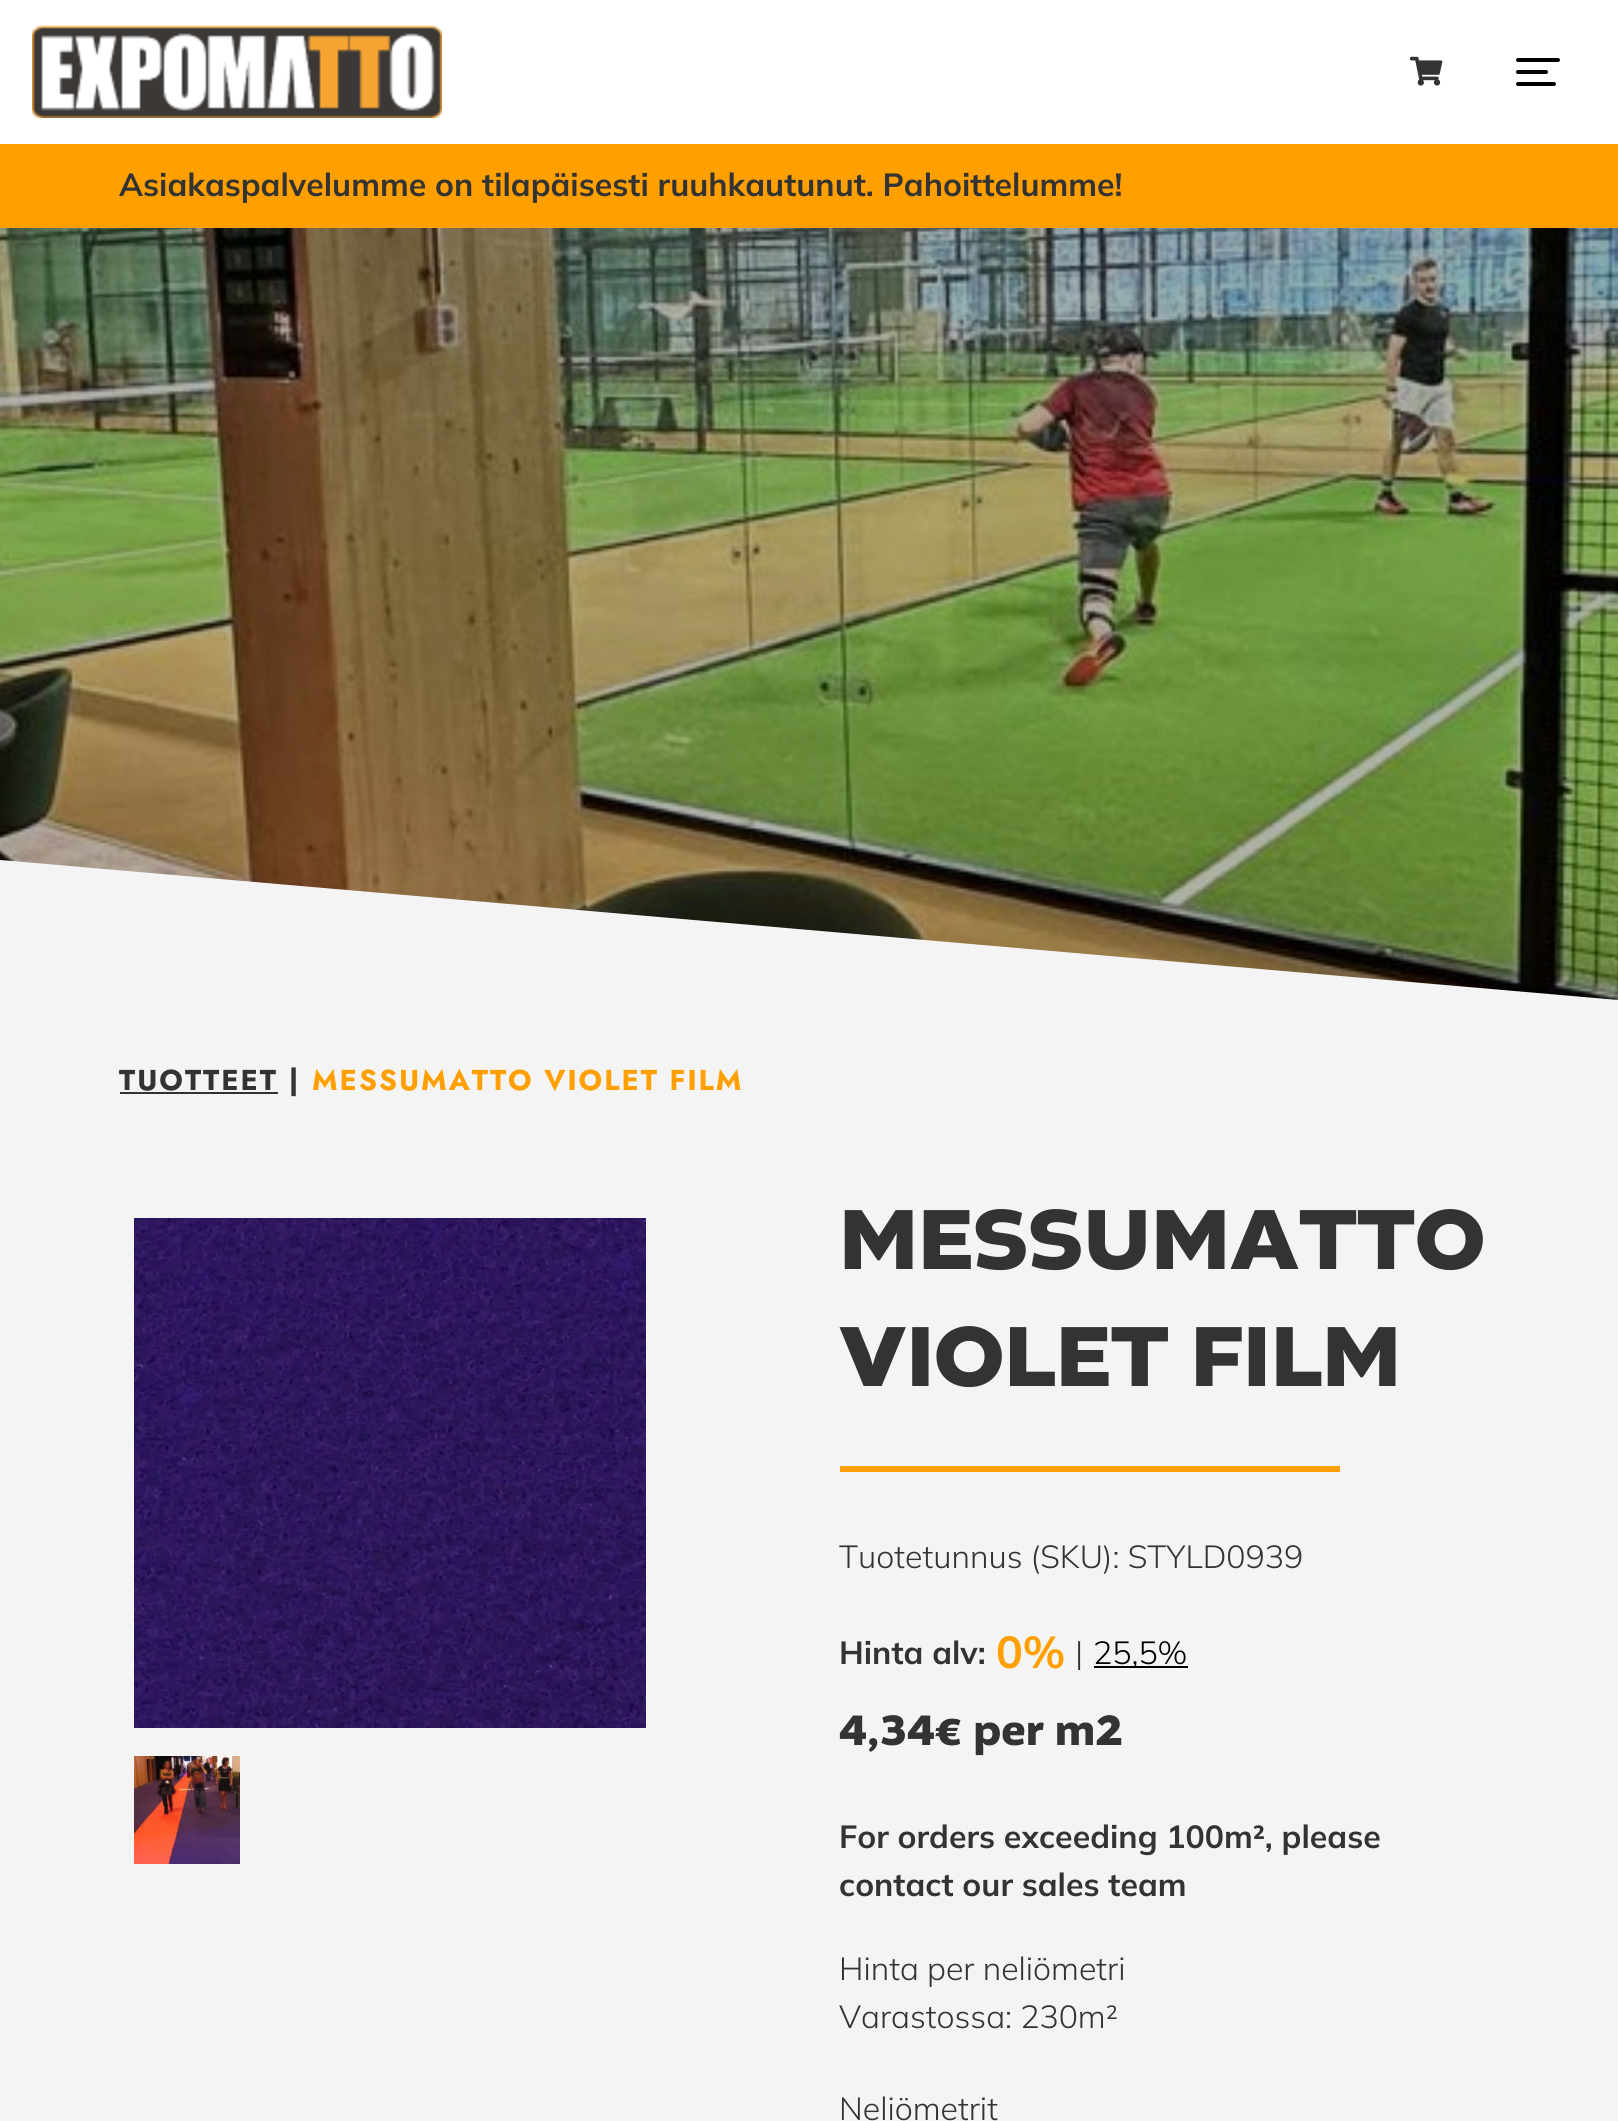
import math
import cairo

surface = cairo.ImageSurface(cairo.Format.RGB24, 1618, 2121)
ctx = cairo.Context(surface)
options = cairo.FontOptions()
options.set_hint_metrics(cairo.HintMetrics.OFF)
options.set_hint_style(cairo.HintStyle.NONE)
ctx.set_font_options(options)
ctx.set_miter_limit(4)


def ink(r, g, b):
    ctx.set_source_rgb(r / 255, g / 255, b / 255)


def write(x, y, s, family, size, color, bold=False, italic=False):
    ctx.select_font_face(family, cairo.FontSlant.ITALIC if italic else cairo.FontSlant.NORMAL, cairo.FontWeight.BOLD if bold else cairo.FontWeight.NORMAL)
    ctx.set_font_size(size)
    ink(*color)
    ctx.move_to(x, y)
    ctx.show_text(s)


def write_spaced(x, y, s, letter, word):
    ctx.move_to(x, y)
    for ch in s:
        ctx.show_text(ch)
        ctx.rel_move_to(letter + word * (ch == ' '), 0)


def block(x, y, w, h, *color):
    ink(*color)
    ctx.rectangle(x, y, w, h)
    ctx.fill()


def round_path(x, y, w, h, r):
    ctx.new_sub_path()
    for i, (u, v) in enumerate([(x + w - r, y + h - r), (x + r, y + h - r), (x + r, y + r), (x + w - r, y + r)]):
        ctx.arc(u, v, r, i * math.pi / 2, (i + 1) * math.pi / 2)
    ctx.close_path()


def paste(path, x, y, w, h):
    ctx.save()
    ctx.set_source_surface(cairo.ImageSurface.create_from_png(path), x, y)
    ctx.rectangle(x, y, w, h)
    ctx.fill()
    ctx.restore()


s1 = dict(family="Mulish", size=32, color=(51, 51, 51), bold=True)
s2 = dict(family="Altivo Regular", size=89.5, color=(51, 51, 51), bold=True)
s3 = dict(family="Mulish Light", size=32, color=(51, 51, 51))
s4 = dict(family="Mulish", size=44.75, color=(255, 160, 0), bold=True)
s5 = dict(family="Mulish Light", size=32, color=(0, 0, 0))
s6 = dict(family="Altivo Regular", size=44.75, color=(51, 51, 51), bold=True)

ink(244, 244, 244)
ctx.paint()
paste("pic1.png", 0, 228, 1618, 772)
block(0, 0, 1618, 144, 255, 255, 255)
paste("pic2.png", 32, 25, 410, 93)
paste("pic3.png", 1410, 56, 33, 30)
ink(0, 0, 0)
round_path(1516, 58, 44, 4, 2)
ctx.fill()
round_path(1516, 70, 32, 4, 2)
ctx.fill()
round_path(1516, 82, 40, 4, 2)
ctx.fill()
block(0, 144, 1618, 84, 255, 160, 0)
write(119, 196, "Asiakaspalvelumme on tilapäisesti ruuhkautunut. Pahoittelumme!", **s1)
ink(244, 244, 244)
ctx.new_path()
ctx.move_to(0, 1000)
ctx.line_to(0, 860)
ctx.line_to(1618, 1000)
ctx.close_path()
ctx.fill()
block(120, 1092, 158, 2, 51, 51, 51)
ctx.select_font_face("Jost", cairo.FontSlant.NORMAL, cairo.FontWeight.BOLD)
ctx.set_font_size(28.75)
write_spaced(119, 1090, "TUOTTEET |", 2, 0)
ink(255, 160, 0)
write_spaced(312, 1090, "MESSUMATTO VIOLET FILM", 2, 0)
paste("pic4.png", 134, 1218, 512, 510)
paste("pic5.png", 134, 1756, 106, 108)
write(839, 1269, "MESSUMATTO", **s2)
write(839, 1386, "VIOLET FILM", **s2)
block(840, 1466, 500, 6, 255, 160, 0)
write(839, 1568, "Tuotetunnus (SKU): STYLD0939", **s3)
write(839, 1664, "Hinta alv:", **s1)
write(996, 1668, "0%", **s4)
write(1075, 1664, "|", **s3)
block(1094, 1666, 94, 2, 0, 0, 0)
write(1093, 1664, "25,5%", **s5)
write(839, 1745, "4,34€ per m2", **s6)
write(839, 1848, "For orders exceeding 100m², please", **s1)
write(839, 1896, "contact our sales team", **s1)
write(839, 1980, "Hinta per neliömetri", **s3)
write(839, 2028, "Varastossa: 230m²", **s3)
write(839, 2120, "Neliömetrit", **s3)
surface.write_to_png("screenshot.png")
